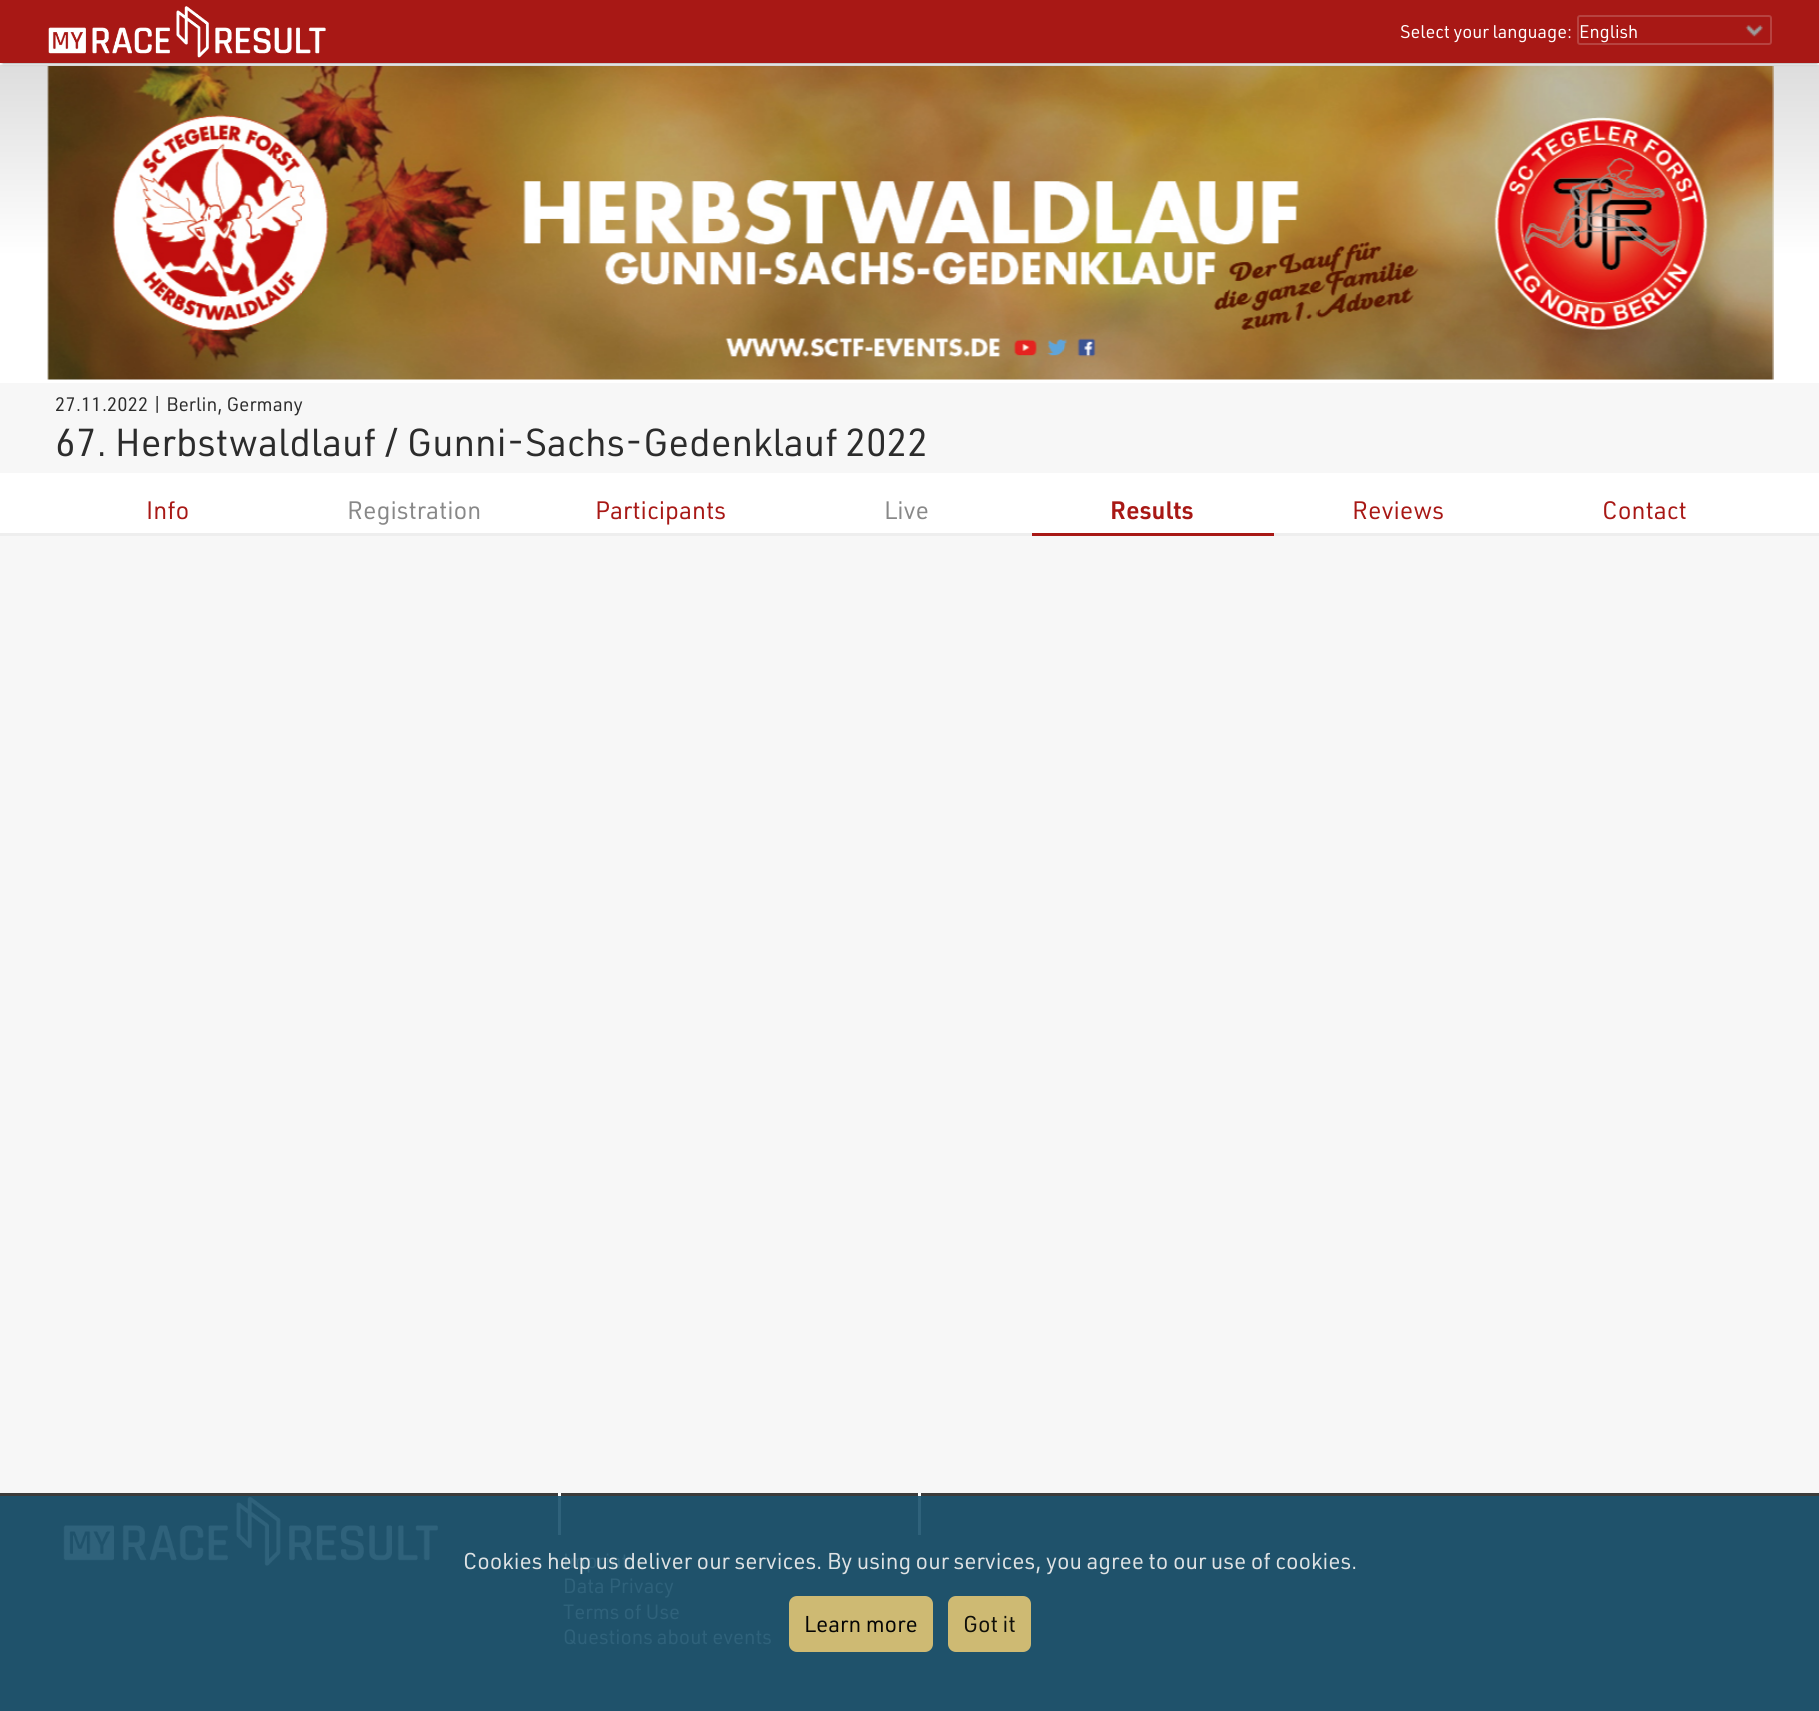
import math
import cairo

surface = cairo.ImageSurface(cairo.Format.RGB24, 1819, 1711)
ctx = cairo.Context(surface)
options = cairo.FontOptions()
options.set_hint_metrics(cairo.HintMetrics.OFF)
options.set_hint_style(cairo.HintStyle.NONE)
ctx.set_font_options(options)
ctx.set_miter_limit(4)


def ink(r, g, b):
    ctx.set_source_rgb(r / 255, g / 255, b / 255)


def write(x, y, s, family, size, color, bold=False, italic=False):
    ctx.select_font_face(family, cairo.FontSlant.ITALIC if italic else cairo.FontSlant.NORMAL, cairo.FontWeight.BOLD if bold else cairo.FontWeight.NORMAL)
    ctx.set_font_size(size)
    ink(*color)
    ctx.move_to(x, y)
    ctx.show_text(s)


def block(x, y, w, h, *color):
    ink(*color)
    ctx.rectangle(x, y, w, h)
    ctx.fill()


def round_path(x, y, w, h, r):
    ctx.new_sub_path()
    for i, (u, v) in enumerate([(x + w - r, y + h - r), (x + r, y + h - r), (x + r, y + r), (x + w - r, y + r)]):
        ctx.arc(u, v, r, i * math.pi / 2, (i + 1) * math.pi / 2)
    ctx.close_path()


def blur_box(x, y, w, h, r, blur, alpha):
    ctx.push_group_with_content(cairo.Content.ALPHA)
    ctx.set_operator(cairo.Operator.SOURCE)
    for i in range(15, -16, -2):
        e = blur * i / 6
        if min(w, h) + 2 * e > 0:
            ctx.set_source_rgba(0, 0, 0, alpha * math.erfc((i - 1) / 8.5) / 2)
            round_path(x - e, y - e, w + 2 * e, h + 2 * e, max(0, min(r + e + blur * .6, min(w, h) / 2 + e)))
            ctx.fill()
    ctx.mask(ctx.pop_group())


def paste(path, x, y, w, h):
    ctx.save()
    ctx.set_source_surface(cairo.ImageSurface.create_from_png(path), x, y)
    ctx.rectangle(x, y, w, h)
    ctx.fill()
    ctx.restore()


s1 = dict(family="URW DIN", size=18, color=(255, 255, 255))
s2 = dict(family="URW DIN", size=19.1, color=(44, 44, 44))
s3 = dict(family="URW DIN", size=38.25, color=(44, 44, 44))
s4 = dict(family="URW DIN", size=24.75, color=(168, 24, 21))
s5 = dict(family="URW DIN", size=24.75, color=(136, 136, 136))
s6 = dict(family="URW DIN SemiBold", size=24.75, color=(168, 24, 21))
s7 = dict(family="URW DIN", size=20.25, color=(47, 98, 123))
s8 = dict(family="URW DIN", size=22.5, color=(222, 226, 228))
s9 = dict(family="URW DIN", size=22.5, color=(5, 5, 5))
s10 = dict(family="URW DIN", size=22.5, color=(16, 15, 9))

ink(247, 247, 247)
ctx.paint()
gradient = cairo.LinearGradient(910, 383, 910, 65)
gradient.add_color_stop_rgba(0.4, 1, 1, 1, 1)
gradient.add_color_stop_rgba(1, 0.867, 0.867, 0.867, 1)
ctx.set_source(gradient)
ctx.rectangle(0, 65, 1819, 318)
ctx.fill()
paste("pic3.png", 47, 66, 1727, 314)
ink(0, 0, 0)
blur_box(3, 6, 1814, 57, 0, 1.5, 0.52)
block(0, 0, 1819, 63, 168, 24, 21)
paste("pic1.png", 48, 6, 278, 52)
write(1400, 38, "Select your language:", **s1)
paste("pic2.png", 1745, 25, 18, 12)
round_path(1578, 16, 193, 28, 2)
ink(183, 67, 64)
ctx.stroke()
write(1579, 38, "English", **s1)
write(55, 411, "27.11.2022 | Berlin, Germany", **s2)
write(55, 456, "67. Herbstwaldlauf / Gunni-Sachs-Gedenklauf 2022", **s3)
block(0, 473, 1819, 60, 255, 255, 255)
block(0, 533, 1819, 3, 238, 238, 238)
write(146, 519, "Info", **s4)
write(347, 519, "Registration", **s5)
write(595, 519, "Participants", **s4)
write(884, 519, "Live", **s5)
block(1032, 533, 242, 3, 168, 24, 21)
write(1110, 519, "Results", **s6)
write(1352, 519, "Reviews", **s4)
write(1602, 519, "Contact", **s4)
block(0, 1496, 1819, 215, 31, 82, 107)
write(563, 1568, "Imprint", **s7)
write(463, 1569, "Cookies help us deliver our services. By using our services, you agree to our use of cookies.", **s8)
ctx.set_source_rgba(0.867, 0.765, 0.455, 0.92)
round_path(789, 1596, 144, 56, 8)
ctx.fill()
write(804, 1632, "Learn more", **s9)
ctx.set_source_rgba(0.867, 0.765, 0.455, 0.92)
round_path(948, 1596, 83, 56, 8)
ctx.fill()
write(963, 1632, "Got it", **s10)
block(0, 1493, 1819, 3, 60, 60, 59)
paste("pic4.png", 63, 1496, 375, 70)
block(918, 1493, 3, 3, 255, 255, 255)
block(918, 1496, 3, 39, 47, 98, 123)
block(558, 1493, 3, 3, 255, 255, 255)
block(558, 1496, 3, 39, 47, 98, 123)
write(563, 1593, "Data Privacy", **s7)
write(563, 1619, "Terms of Use", **s7)
write(563, 1644, "Questions about events", **s7)
surface.write_to_png("screenshot.png")
